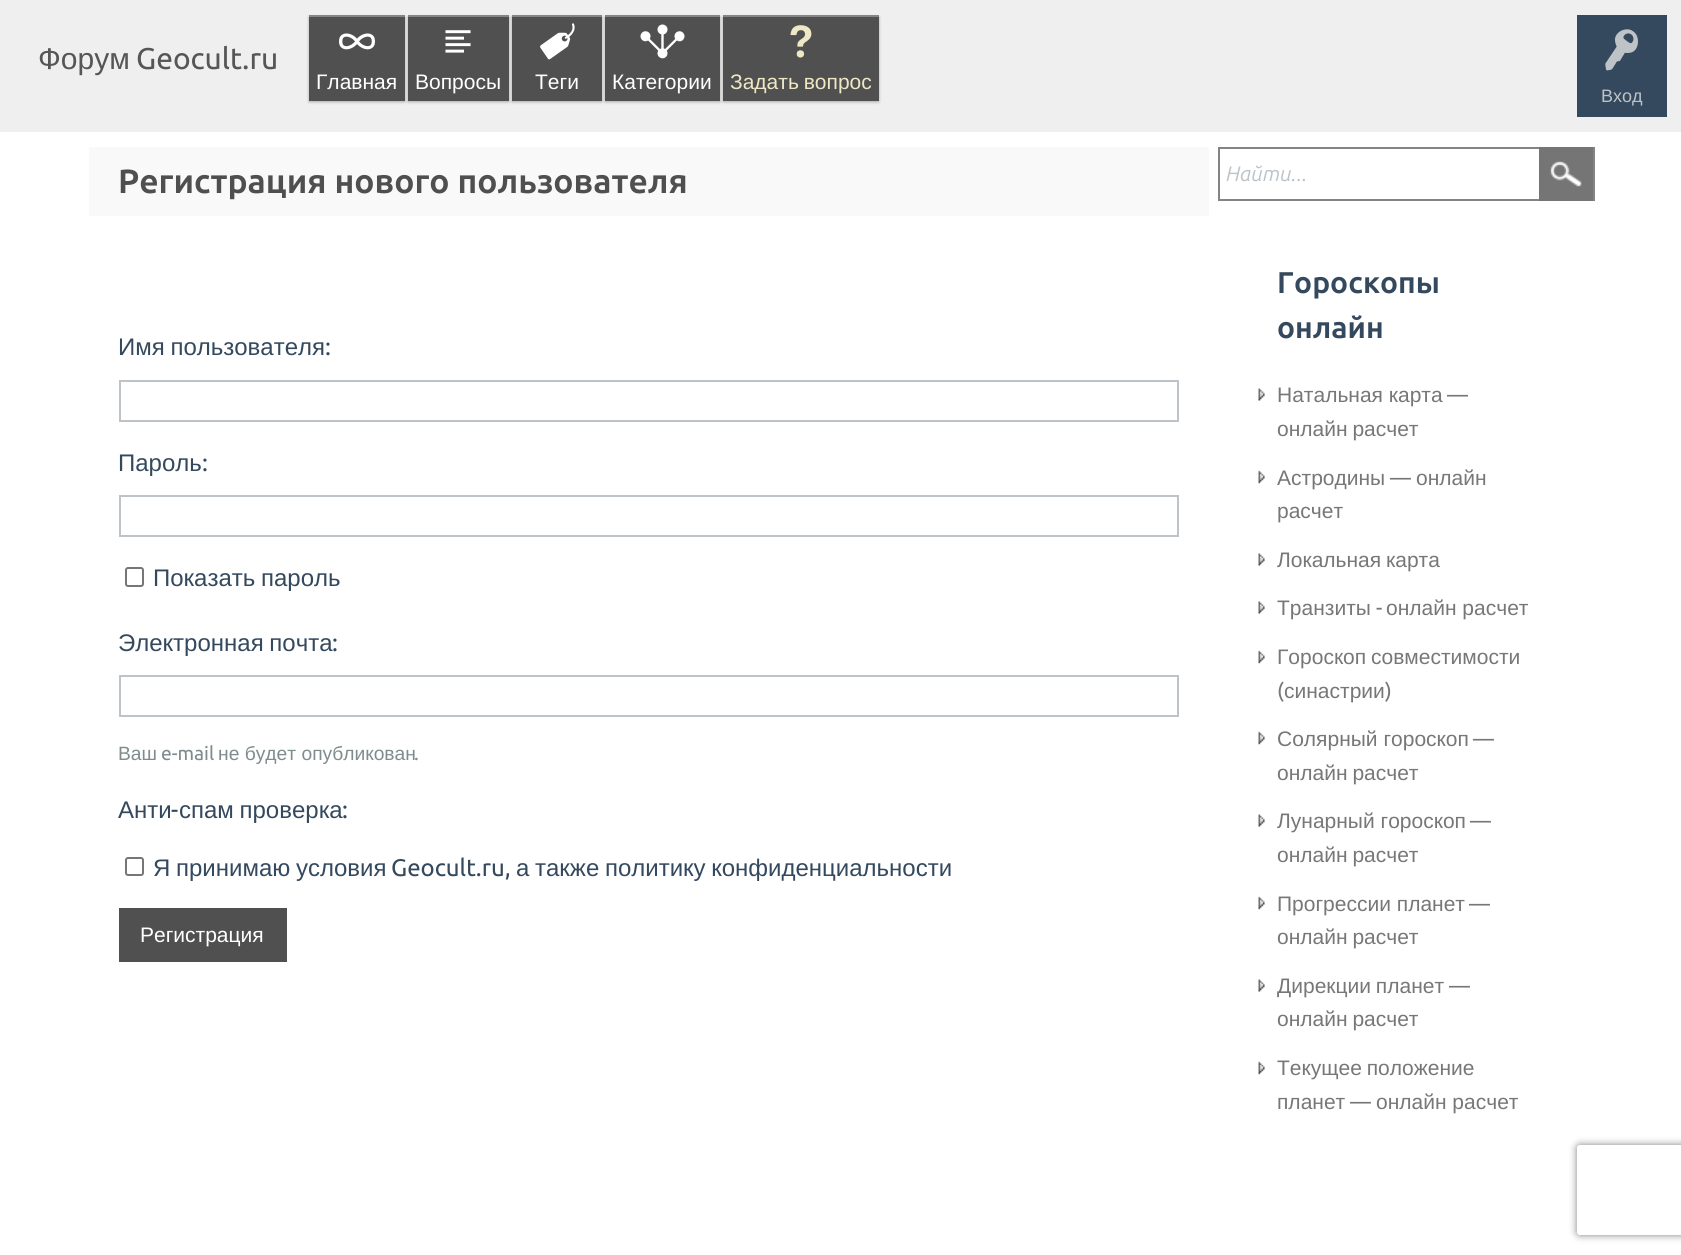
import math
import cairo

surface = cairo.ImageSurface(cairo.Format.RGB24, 1681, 1255)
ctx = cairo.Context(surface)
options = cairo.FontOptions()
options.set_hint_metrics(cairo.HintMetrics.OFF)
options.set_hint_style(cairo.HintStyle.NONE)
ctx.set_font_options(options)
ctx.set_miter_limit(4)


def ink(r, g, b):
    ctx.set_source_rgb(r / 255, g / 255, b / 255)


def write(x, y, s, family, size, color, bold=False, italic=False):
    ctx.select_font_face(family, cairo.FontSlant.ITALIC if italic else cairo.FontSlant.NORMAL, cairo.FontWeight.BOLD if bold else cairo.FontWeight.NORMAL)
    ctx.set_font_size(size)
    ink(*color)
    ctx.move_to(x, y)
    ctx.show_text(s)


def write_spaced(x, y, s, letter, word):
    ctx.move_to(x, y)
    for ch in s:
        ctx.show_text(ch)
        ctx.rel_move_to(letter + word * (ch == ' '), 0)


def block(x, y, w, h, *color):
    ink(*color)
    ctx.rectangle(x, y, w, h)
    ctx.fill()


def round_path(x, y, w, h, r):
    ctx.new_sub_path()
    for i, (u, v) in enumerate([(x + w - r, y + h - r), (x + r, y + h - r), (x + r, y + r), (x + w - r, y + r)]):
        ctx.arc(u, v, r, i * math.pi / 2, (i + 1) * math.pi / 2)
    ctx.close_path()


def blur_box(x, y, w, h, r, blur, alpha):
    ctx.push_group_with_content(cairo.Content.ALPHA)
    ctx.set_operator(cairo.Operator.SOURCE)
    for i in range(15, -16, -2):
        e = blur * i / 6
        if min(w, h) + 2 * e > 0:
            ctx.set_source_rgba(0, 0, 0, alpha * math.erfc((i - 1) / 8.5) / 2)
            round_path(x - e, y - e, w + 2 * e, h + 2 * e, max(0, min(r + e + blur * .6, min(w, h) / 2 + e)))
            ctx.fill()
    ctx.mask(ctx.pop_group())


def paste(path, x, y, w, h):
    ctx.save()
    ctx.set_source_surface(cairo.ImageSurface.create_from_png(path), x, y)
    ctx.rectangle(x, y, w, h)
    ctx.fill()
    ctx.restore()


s1 = dict(family="Liberation Sans", size=30, color=(86, 86, 86))
s2 = dict(family="Ubuntu", size=30, color=(86, 86, 86))
s3 = dict(family="Liberation Sans", size=21, color=(255, 255, 255))
s4 = dict(family="Liberation Sans", size=18, color=(189, 195, 199))
s5 = dict(family="Ubuntu", size=33.6, color=(79, 79, 79), bold=True)
s6 = dict(family="Ubuntu", size=24, color=(52, 73, 94))
s7 = dict(family="Liberation Sans", size=24, color=(52, 73, 94))
s8 = dict(family="Liberation Sans", size=19.25, color=(127, 140, 141))
s9 = dict(family="Ubuntu", size=19.25, color=(127, 140, 141))
s10 = dict(family="Ubuntu", size=21, color=(189, 195, 199), italic=True)
s11 = dict(family="Ubuntu", size=30, color=(52, 73, 94), bold=True)
s12 = dict(family="Liberation Sans", size=21, color=(119, 119, 119))
s13 = dict(family="Ubuntu", size=21, color=(119, 119, 119))

ink(255, 255, 255)
ctx.paint()
block(0, 0, 1681, 132, 239, 239, 239)
write(38, 69, "Форум", **s1)
write(136, 69, "Geocult.ru", **s2)
ink(0, 0, 0)
blur_box(309, 17, 96, 85, 0, 1.5, 0.29)
block(309, 17, 96, 84, 80, 80, 80)
block(309, 15, 96, 2, 133, 133, 133)
paste("pic1.png", 339, 33, 36, 17)
write(316, 89, "Главная", **s3)
ink(0, 0, 0)
blur_box(408, 17, 101, 85, 0, 1.5, 0.29)
block(408, 17, 101, 84, 80, 80, 80)
block(408, 15, 101, 2, 133, 133, 133)
paste("pic2.png", 445, 30, 26, 23)
write(415, 89, "Вопросы", **s3)
ink(0, 0, 0)
blur_box(512, 17, 90, 85, 0, 1.5, 0.29)
block(512, 17, 90, 84, 80, 80, 80)
block(512, 15, 90, 2, 133, 133, 133)
paste("pic3.png", 540, 23, 35, 37)
write(535, 89, "Теги", **s3)
ink(0, 0, 0)
blur_box(605, 17, 115, 85, 0, 1.5, 0.29)
block(605, 17, 115, 84, 80, 80, 80)
block(605, 15, 115, 2, 133, 133, 133)
paste("pic4.png", 640, 24, 45, 35)
write(612, 89, "Категории", **s3)
ink(0, 0, 0)
blur_box(723, 17, 156, 85, 0, 1.5, 0.29)
block(723, 17, 156, 84, 80, 80, 80)
block(723, 15, 156, 2, 133, 133, 133)
paste("pic5.png", 790, 25, 22, 33)
ink(239, 232, 197)
write_spaced(730, 89, "Задать вопрос", 0, -1)
block(1577, 15, 90, 102, 52, 73, 94)
paste("pic6.png", 1605, 29, 33, 42)
write(1601, 102, "Вход", **s4)
block(89, 147, 1120, 69, 249, 249, 249)
write(118, 193, "Регистрация нового пользователя", **s5)
ctx.select_font_face("Liberation Sans")
ctx.set_font_size(24)
ink(52, 73, 94)
write_spaced(118, 355, "Имя пользователя", 0, -1)
write(325, 355, ":", **s6)
ctx.rectangle(120, 381, 1058, 40)
ink(189, 195, 199)
ctx.stroke()
write(118, 471, "Пароль", **s7)
write(202, 471, ":", **s6)
ctx.rectangle(120, 496, 1058, 40)
ink(189, 195, 199)
ctx.stroke()
round_path(126, 568, 17, 18, 2)
ink(118, 118, 118)
ctx.stroke()
ctx.select_font_face("Liberation Sans")
ink(52, 73, 94)
write_spaced(153, 586, "Показать пароль", 0, -1)
write_spaced(118, 651, "Электронная почта", 0, -1)
write(332, 651, ":", **s6)
ctx.rectangle(120, 676, 1058, 40)
ink(189, 195, 199)
ctx.stroke()
write(118, 760, "Ваш", **s8)
write(161, 760, "e-mail", **s9)
write(218, 760, "не будет опубликован", **s8)
write(414, 760, ".", **s9)
write(118, 818, "Анти", **s7)
write(171, 818, "-", **s6)
ctx.select_font_face("Liberation Sans")
write_spaced(179, 818, "спам проверка", 0, -1)
write(342, 818, ":", **s6)
round_path(126, 858, 17, 17, 2)
ink(118, 118, 118)
ctx.stroke()
ctx.select_font_face("Liberation Sans")
ink(52, 73, 94)
write_spaced(153, 876, "Я принимаю условия", 0, -1)
write(391, 876, "Geocult.ru,", **s6)
ctx.select_font_face("Liberation Sans")
write_spaced(516, 876, "а также политику конфиденциальности", 0, -1)
block(119, 908, 168, 54, 80, 80, 80)
write(140, 942, "Регистрация", **s3)
ctx.rectangle(1219, 148, 375, 52)
ink(132, 132, 132)
ctx.stroke()
write(1226, 181, "Найти...", **s10)
block(1539, 147, 54, 54, 117, 117, 117)
paste("pic7.png", 1550, 161, 32, 26)
write(1277, 293, "Гороскопы", **s11)
write(1277, 338, "онлайн", **s11)
paste("pic8.png", 1258, 388, 7, 13)
write(1277, 402, "Натальная карта", **s12)
write(1447, 402, "—", **s13)
ctx.select_font_face("Liberation Sans")
write_spaced(1277, 436, "онлайн расчет", 0, -1)
paste("pic9.png", 1258, 470, 7, 14)
write(1277, 485, "Астродины", **s12)
write(1390, 485, "—", **s13)
write(1416, 485, "онлайн", **s12)
write(1277, 518, "расчет", **s12)
paste("pic8.png", 1258, 553, 7, 13)
write_spaced(1277, 567, "Локальная карта", 0, -1)
paste("pic8.png", 1258, 601, 7, 13)
write(1277, 615, "Транзиты", **s12)
write(1376, 615, "-", **s13)
write(1386, 615, "онлайн расчет", **s12)
paste("pic9.png", 1258, 650, 7, 14)
write_spaced(1277, 664, "Гороскоп совместимости", 0, -1)
write(1277, 698, "(", **s13)
write(1284, 698, "синастрии", **s12)
write(1385, 698, ")", **s13)
paste("pic9.png", 1258, 731, 7, 14)
write(1277, 746, "Солярный гороскоп", **s12)
write(1473, 746, "—", **s13)
ctx.select_font_face("Liberation Sans")
write_spaced(1277, 780, "онлайн расчет", 0, -1)
paste("pic8.png", 1258, 814, 7, 13)
write(1277, 828, "Лунарный гороскоп", **s12)
write(1470, 828, "—", **s13)
ctx.select_font_face("Liberation Sans")
write_spaced(1277, 862, "онлайн расчет", 0, -1)
paste("pic9.png", 1258, 896, 7, 14)
write(1277, 911, "Прогрессии планет", **s12)
write(1469, 911, "—", **s13)
ctx.select_font_face("Liberation Sans")
write_spaced(1277, 944, "онлайн расчет", 0, -1)
paste("pic8.png", 1258, 979, 7, 13)
write_spaced(1277, 993, "Дирекции планет", 0, -1)
write(1449, 993, "—", **s13)
ctx.select_font_face("Liberation Sans")
write_spaced(1277, 1026, "онлайн расчет", 0, -1)
paste("pic9.png", 1258, 1061, 7, 14)
write_spaced(1277, 1075, "Текущее положение", 0, -1)
write(1277, 1109, "планет", **s12)
write(1350, 1109, "—", **s13)
write(1376, 1109, "онлайн расчет", **s12)
ctx.save()
ctx.set_fill_rule(cairo.FillRule.EVEN_ODD)
ctx.new_path()
ctx.move_to(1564, 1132)
ctx.line_to(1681, 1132)
ctx.line_to(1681, 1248)
ctx.line_to(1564, 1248)
ctx.close_path()
ctx.move_to(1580, 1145)
ctx.line_to(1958, 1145)
ctx.curve_to(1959.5, 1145, 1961, 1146.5, 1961, 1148)
ctx.line_to(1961, 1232)
ctx.curve_to(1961, 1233.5, 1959.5, 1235, 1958, 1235)
ctx.line_to(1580, 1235)
ctx.curve_to(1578.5, 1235, 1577, 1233.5, 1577, 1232)
ctx.line_to(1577, 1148)
ctx.curve_to(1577, 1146.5, 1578.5, 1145, 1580, 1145)
ctx.close_path()
ctx.clip()
ink(128, 128, 128)
blur_box(1577, 1145, 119, 90, 3, 4, 1)
ctx.restore()
surface.write_to_png("screenshot.png")
